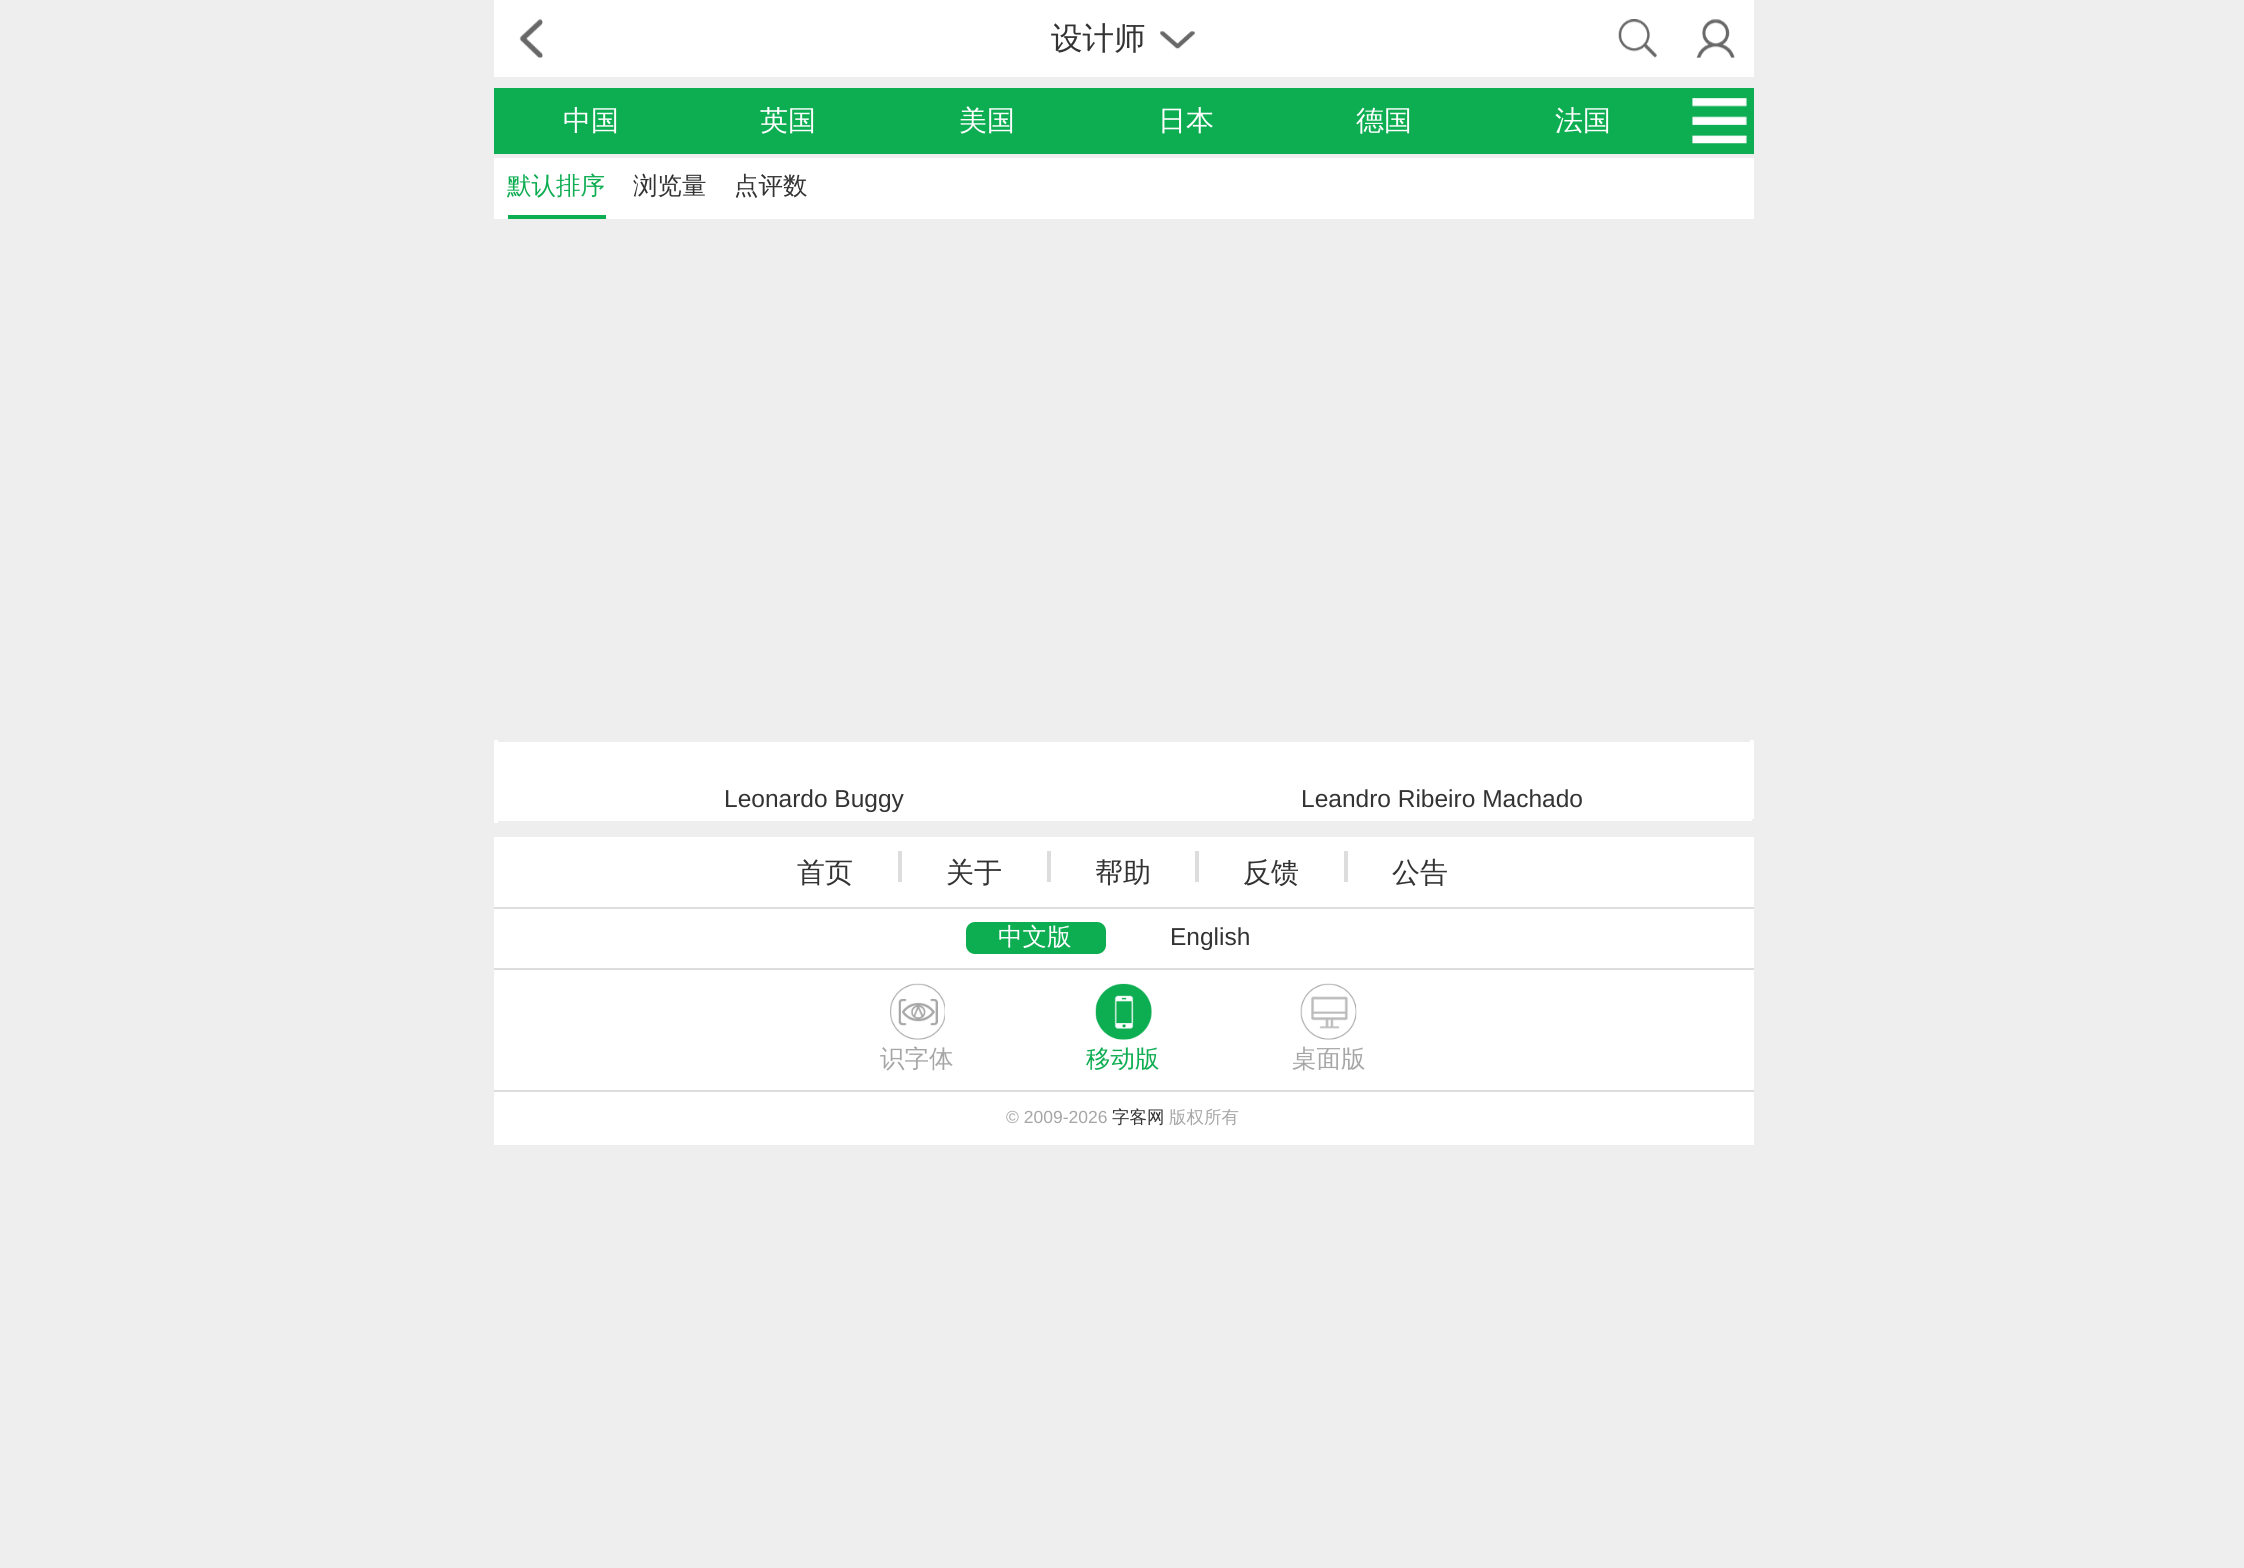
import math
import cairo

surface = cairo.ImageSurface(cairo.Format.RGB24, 2244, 1568)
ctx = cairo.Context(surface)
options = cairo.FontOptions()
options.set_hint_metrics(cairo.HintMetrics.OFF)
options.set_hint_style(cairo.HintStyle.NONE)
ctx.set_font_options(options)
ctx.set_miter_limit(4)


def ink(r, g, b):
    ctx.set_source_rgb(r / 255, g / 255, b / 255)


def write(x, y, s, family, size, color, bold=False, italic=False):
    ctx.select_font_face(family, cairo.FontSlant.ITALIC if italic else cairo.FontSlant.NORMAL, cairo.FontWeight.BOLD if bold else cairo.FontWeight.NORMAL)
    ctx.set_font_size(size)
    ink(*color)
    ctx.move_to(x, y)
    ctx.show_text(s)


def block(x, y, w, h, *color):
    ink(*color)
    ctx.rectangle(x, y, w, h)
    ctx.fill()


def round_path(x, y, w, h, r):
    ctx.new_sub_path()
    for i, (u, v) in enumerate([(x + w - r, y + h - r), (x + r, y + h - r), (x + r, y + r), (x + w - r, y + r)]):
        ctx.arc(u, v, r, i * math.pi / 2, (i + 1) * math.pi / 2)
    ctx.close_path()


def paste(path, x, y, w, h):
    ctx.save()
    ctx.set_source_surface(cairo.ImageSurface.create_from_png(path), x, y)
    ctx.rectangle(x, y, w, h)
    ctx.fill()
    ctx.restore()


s1 = dict(family="WenQuanYi Zen Hei Medium", size=31.5, color=(51, 51, 51))
s2 = dict(family="WenQuanYi Zen Hei Medium", size=28, color=(255, 255, 255))
s3 = dict(family="WenQuanYi Zen Hei Medium", size=24.5, color=(13, 173, 81))
s4 = dict(family="WenQuanYi Zen Hei Medium", size=24.5, color=(51, 51, 51))
s5 = dict(family="Liberation Sans", size=24.5, color=(51, 51, 51))
s6 = dict(family="WenQuanYi Zen Hei Medium", size=28, color=(51, 51, 51))
s7 = dict(family="WenQuanYi Zen Hei Medium", size=24.5, color=(255, 255, 255))
s8 = dict(family="WenQuanYi Zen Hei Medium", size=24.5, color=(166, 166, 166))
s9 = dict(family="Liberation Sans", size=17.5, color=(166, 166, 166))
s10 = dict(family="WenQuanYi Zen Hei Medium", size=17.5, color=(51, 51, 51))
s11 = dict(family="WenQuanYi Zen Hei Medium", size=17.5, color=(166, 166, 166))

ink(238, 238, 238)
ctx.paint()
block(494, 0, 1260, 77, 255, 255, 255)
paste("pic1.png", 519, 19, 24, 39)
write(1051, 49, "设计师", **s1)
paste("pic2.png", 1160, 31, 35, 18)
paste("pic3.png", 1618, 19, 39, 39)
paste("pic4.png", 1696, 19, 39, 39)
block(494, 88, 1260, 66, 13, 173, 81)
write(563, 130, "中国", **s2)
write(760, 130, "英国", **s2)
write(959, 130, "美国", **s2)
write(1158, 130, "日本", **s2)
write(1356, 130, "德国", **s2)
write(1555, 130, "法国", **s2)
paste("pic5.png", 1692, 98, 55, 46)
block(494, 158, 1260, 61, 255, 255, 255)
block(508, 215, 98, 4, 13, 173, 81)
write(507, 194, "默认排序", **s3)
write(633, 194, "浏览量", **s4)
write(734, 194, "点评数", **s4)
block(494, 740, 4, 83, 255, 255, 255)
block(1750, 740, 4, 83, 255, 255, 255)
block(1750, 819, 4, 4, 238, 238, 238)
block(498, 742, 1254, 79, 255, 255, 255)
write(724, 807, "Leonardo Buggy", **s5)
write(1301, 807, "Leandro Ribeiro Machado", **s5)
block(494, 837, 1260, 308, 255, 255, 255)
block(494, 907, 1260, 2, 221, 221, 221)
write(797, 882, "首页", **s6)
block(898, 851, 4, 31, 221, 221, 221)
write(946, 882, "关于", **s6)
block(1047, 851, 4, 31, 221, 221, 221)
write(1095, 882, "帮助", **s6)
block(1195, 851, 4, 31, 221, 221, 221)
write(1243, 882, "反馈", **s6)
block(1344, 851, 4, 31, 221, 221, 221)
write(1392, 882, "公告", **s6)
block(494, 968, 1260, 2, 221, 221, 221)
ink(13, 173, 81)
round_path(966, 922, 140, 32, 9)
ctx.fill()
write(998, 945, "中文版", **s7)
write(1170, 945, "English", **s5)
block(494, 1090, 1260, 2, 221, 221, 221)
paste("pic6.png", 890, 983, 55, 57)
write(880, 1067, "识字体", **s8)
paste("pic7.png", 1095, 983, 57, 57)
write(1086, 1067, "移动版", **s3)
paste("pic8.png", 1300, 983, 57, 57)
write(1292, 1067, "桌面版", **s8)
write(1006, 1123, "© 2009-2026", **s9)
write(1112, 1123, "字客网", **s10)
write(1169, 1123, "版权所有", **s11)
surface.write_to_png("screenshot.png")
